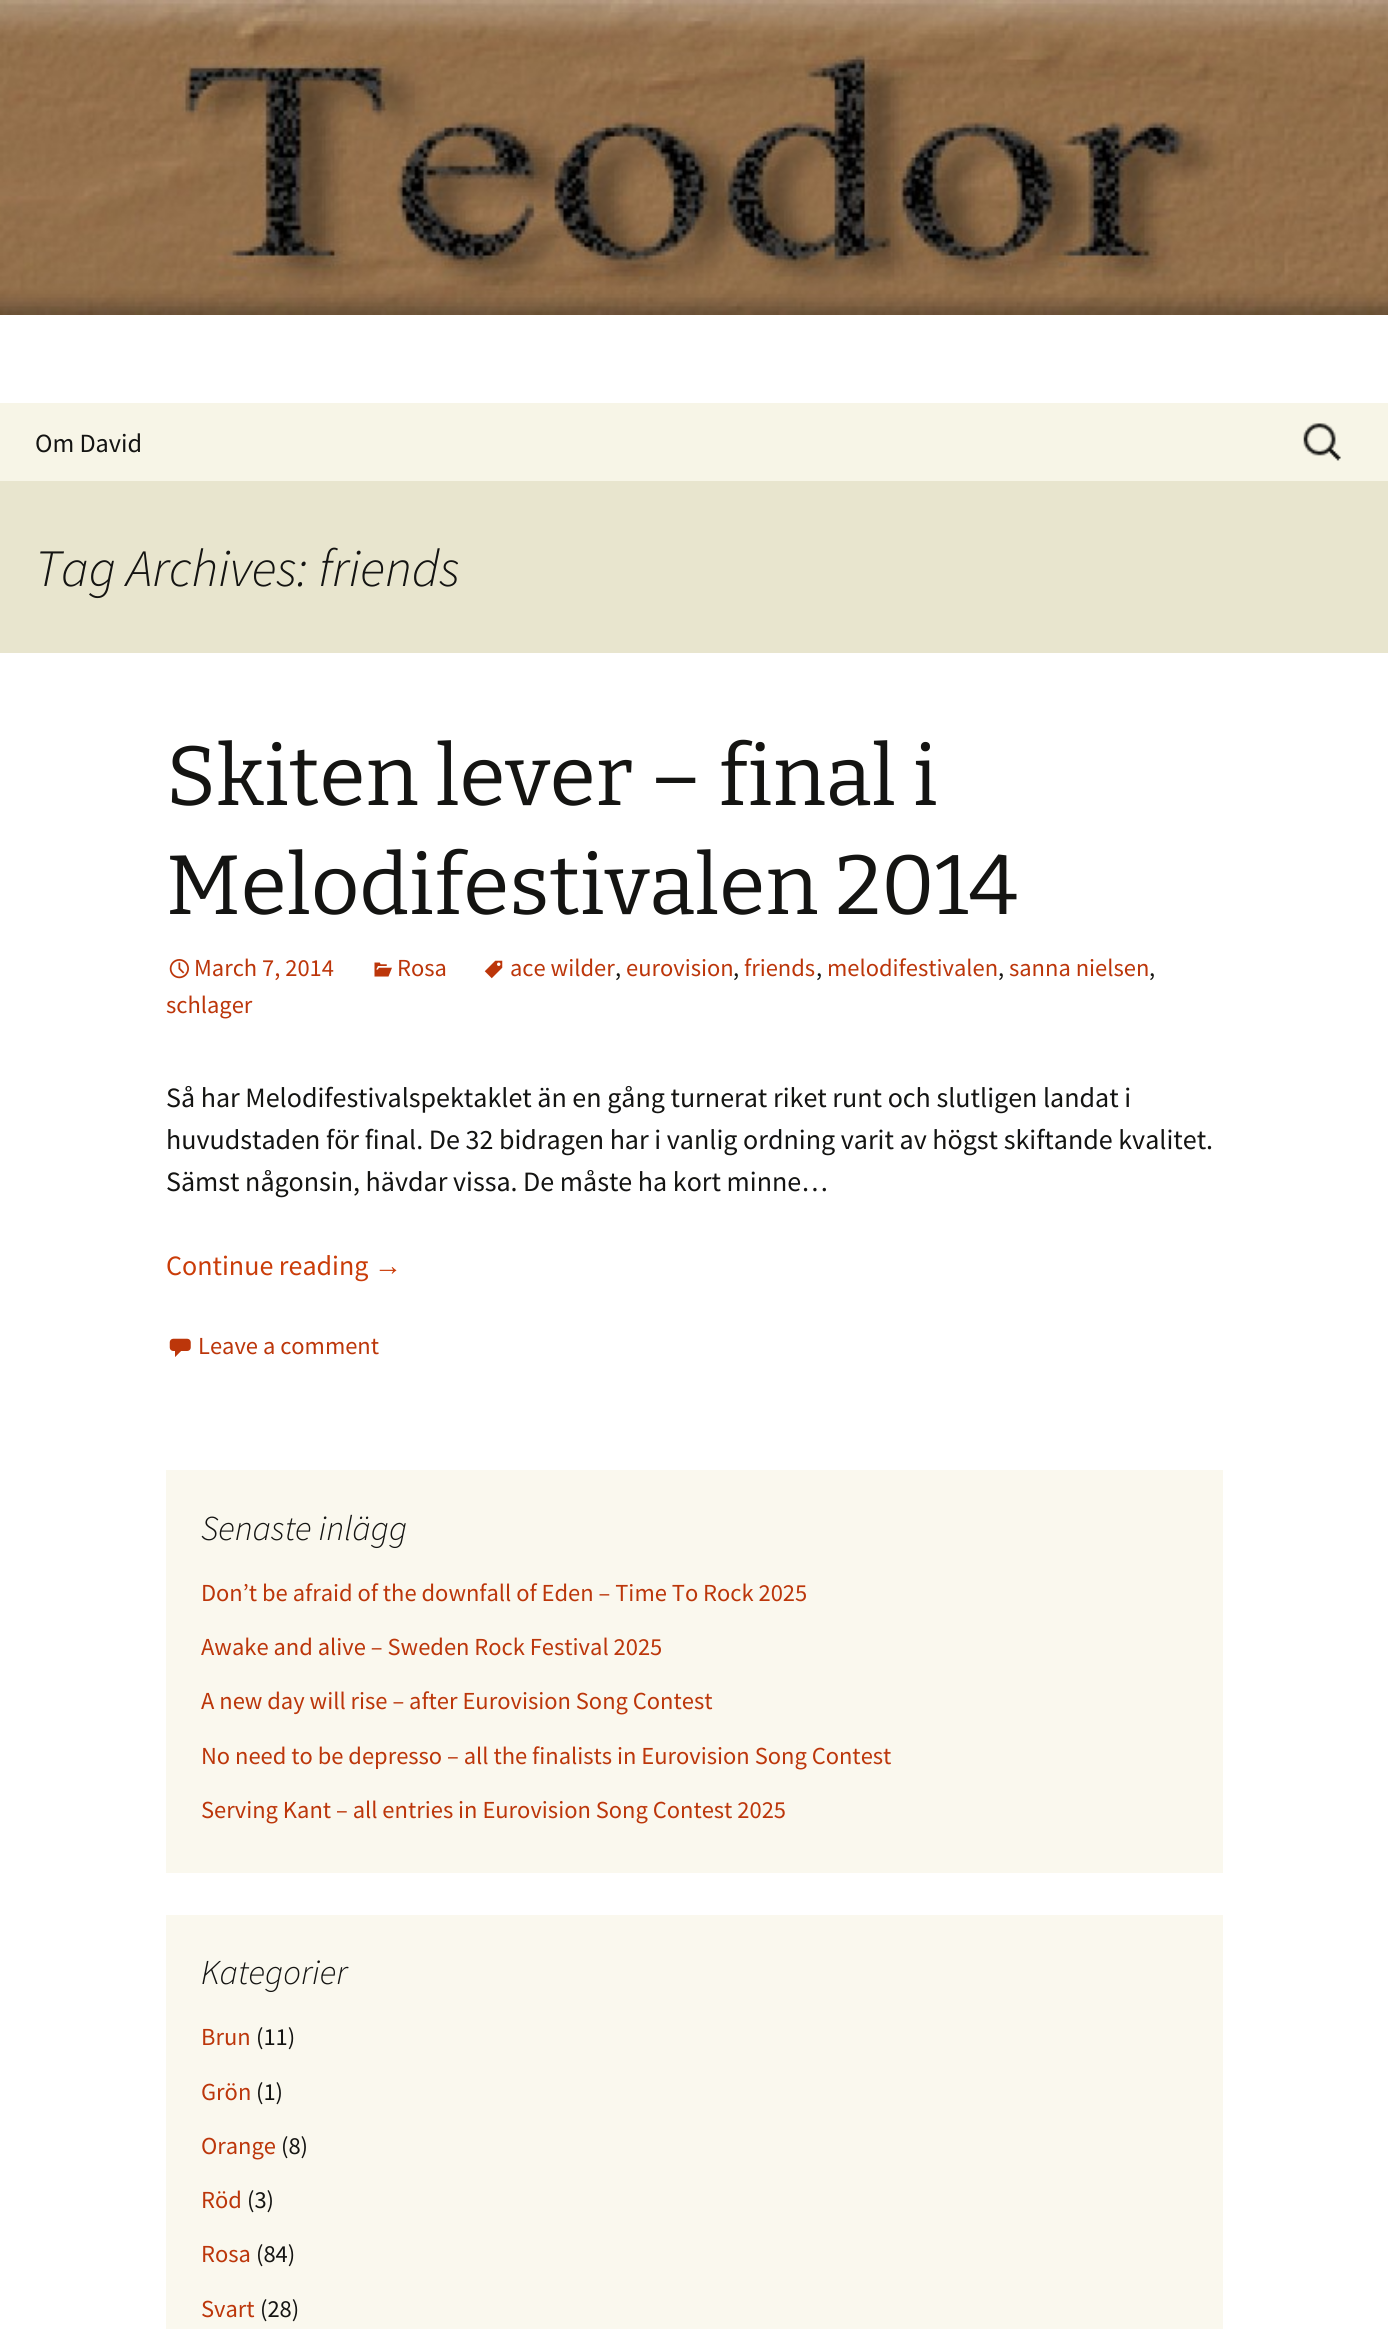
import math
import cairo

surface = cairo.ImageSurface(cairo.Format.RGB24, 1388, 2329)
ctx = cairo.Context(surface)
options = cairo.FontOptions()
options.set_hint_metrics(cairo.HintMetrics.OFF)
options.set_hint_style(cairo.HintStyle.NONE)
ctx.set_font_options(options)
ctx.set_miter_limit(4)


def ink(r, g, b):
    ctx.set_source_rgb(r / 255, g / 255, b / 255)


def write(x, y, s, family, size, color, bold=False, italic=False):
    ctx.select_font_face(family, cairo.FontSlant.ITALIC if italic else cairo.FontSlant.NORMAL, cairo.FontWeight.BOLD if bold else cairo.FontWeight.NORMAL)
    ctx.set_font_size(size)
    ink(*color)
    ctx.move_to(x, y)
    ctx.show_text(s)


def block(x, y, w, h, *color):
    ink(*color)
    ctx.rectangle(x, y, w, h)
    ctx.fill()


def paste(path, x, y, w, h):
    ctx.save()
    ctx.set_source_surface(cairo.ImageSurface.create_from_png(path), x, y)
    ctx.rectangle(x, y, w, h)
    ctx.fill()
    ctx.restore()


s1 = dict(family="Source Sans Pro", size=26.25, color=(20, 20, 18))
s2 = dict(family="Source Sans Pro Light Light", size=52.5, color=(20, 20, 18), italic=True)
s3 = dict(family="Bitter", size=84, color=(20, 20, 18))
s4 = dict(family="Source Sans Pro", size=24.5, color=(188, 54, 10))
s5 = dict(family="Source Sans Pro", size=24.5, color=(20, 20, 18))
s6 = dict(family="Source Sans Pro", size=28, color=(20, 20, 18))
s7 = dict(family="Source Sans Pro", size=28, color=(202, 60, 8))
s8 = dict(family="Liberation Sans", size=28, color=(202, 60, 8))
s9 = dict(family="Source Sans Pro Light Light", size=35, color=(20, 20, 18), italic=True)

ink(255, 255, 255)
ctx.paint()
paste("pic1.png", 0, 0, 1388, 315)
block(0, 403, 1388, 78, 247, 245, 231)
write(35, 452, "Om David", **s1)
paste("pic2.png", 1303, 423, 38, 38)
block(0, 481, 1388, 172, 232, 229, 206)
write(35, 586, "Tag Archives: friends", **s2)
write(166, 805, "Skiten lever – final i", **s3)
write(166, 914, "Melodifestivalen 2014", **s3)
paste("pic3.png", 484, 960, 19, 19)
write(510, 976, "ace wilder", **s4)
write(615, 976, ",", **s5)
write(626, 976, "eurovision", **s4)
write(733, 976, ",", **s5)
write(744, 976, "friends", **s4)
write(816, 976, ",", **s5)
write(827, 976, "melodifestivalen", **s4)
write(998, 976, ",", **s5)
write(1009, 976, "sanna nielsen", **s4)
write(1149, 976, ",", **s5)
write(166, 1013, "schlager", **s4)
paste("pic4.png", 169, 959, 20, 20)
write(194, 976, "March 7, 2014", **s4)
paste("pic5.png", 374, 962, 18, 15)
write(397, 976, "Rosa", **s4)
write(166, 1107, "Så har Melodifestivalspektaklet än en gång turnerat riket runt och slutligen landat i", **s6)
write(166, 1149, "huvudstaden för final. De 32 bidragen har i vanlig ordning varit av högst skiftande kvalitet.", **s6)
write(166, 1191, "Sämst någonsin, hävdar vissa. De måste ha kort minne…", **s6)
write(166, 1275, "Continue reading", **s7)
write(374, 1275, "→", **s8)
paste("pic6.png", 169, 1338, 22, 19)
write(198, 1354, "Leave a comment", **s4)
block(166, 1470, 1057, 403, 250, 248, 238)
write(201, 1540, "Senaste inlägg", **s9)
write(201, 1601, "Don’t be afraid of the downfall of Eden – Time To Rock 2025", **s4)
write(201, 1655, "Awake and alive – Sweden Rock Festival 2025", **s4)
write(201, 1709, "A new day will rise – after Eurovision Song Contest", **s4)
write(201, 1764, "No need to be depresso – all the finalists in Eurovision Song Contest", **s4)
write(201, 1818, "Serving Kant – all entries in Eurovision Song Contest 2025", **s4)
block(166, 1915, 1057, 414, 250, 248, 238)
write(201, 1984, "Kategorier", **s9)
write(201, 2045, "Brun", **s4)
write(256, 2045, "(11)", **s5)
write(201, 2100, "Grön", **s4)
write(256, 2100, "(1)", **s5)
write(201, 2154, "Orange", **s4)
write(281, 2154, "(8)", **s5)
write(201, 2208, "Röd", **s4)
write(247, 2208, "(3)", **s5)
write(201, 2262, "Rosa", **s4)
write(256, 2262, "(84)", **s5)
write(201, 2317, "Svart", **s4)
write(260, 2317, "(28)", **s5)
surface.write_to_png("screenshot.png")
